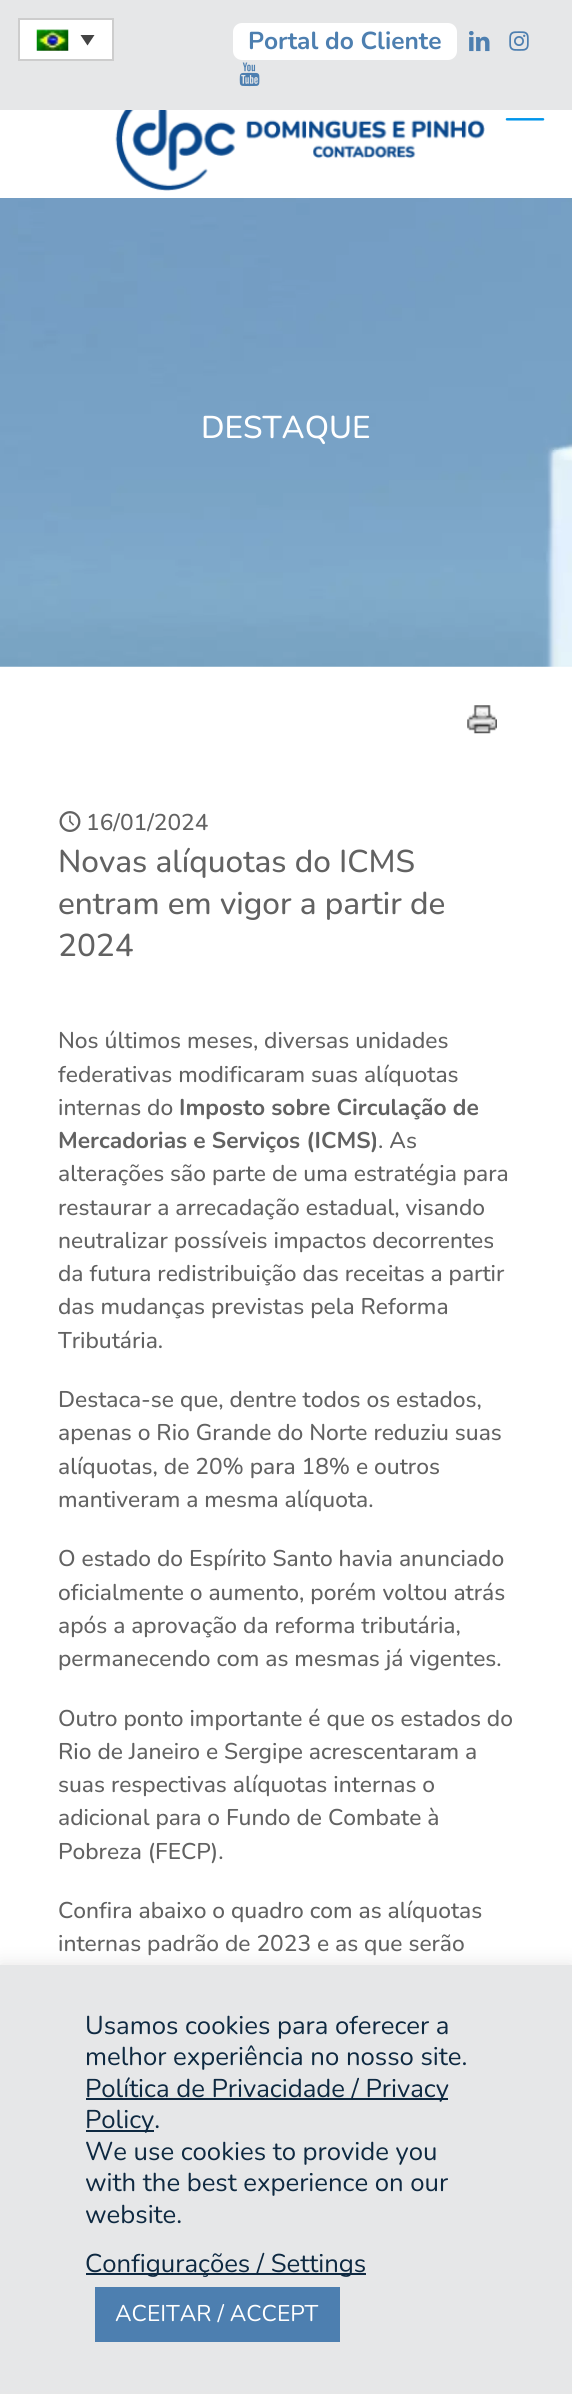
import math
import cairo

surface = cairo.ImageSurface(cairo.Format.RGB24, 572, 2394)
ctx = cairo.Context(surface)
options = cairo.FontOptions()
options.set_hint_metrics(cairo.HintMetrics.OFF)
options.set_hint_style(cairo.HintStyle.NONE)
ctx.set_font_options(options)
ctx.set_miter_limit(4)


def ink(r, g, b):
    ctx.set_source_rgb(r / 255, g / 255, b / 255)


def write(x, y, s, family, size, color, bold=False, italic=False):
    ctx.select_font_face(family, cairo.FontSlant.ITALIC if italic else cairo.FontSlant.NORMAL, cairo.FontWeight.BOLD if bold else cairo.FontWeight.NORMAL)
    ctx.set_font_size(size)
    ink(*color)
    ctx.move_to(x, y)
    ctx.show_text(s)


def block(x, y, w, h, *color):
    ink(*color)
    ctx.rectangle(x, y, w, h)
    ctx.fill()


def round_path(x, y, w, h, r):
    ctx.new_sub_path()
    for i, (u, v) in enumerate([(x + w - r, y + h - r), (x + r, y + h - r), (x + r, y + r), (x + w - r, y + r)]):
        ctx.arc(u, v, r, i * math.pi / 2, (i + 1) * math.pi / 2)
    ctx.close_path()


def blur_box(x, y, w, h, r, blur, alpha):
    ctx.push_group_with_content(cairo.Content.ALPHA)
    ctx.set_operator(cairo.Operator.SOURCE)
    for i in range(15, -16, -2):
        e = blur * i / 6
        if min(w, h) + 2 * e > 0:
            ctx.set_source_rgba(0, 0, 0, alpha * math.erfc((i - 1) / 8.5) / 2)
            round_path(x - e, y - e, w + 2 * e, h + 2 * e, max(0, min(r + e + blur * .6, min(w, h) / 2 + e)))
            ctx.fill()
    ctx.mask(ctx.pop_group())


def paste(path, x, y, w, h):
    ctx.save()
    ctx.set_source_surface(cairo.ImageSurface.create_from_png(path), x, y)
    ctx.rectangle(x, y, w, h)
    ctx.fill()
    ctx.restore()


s1 = dict(family="Nunito", size=24.5, color=(77, 127, 176), bold=True)
s2 = dict(family="Nunito Medium", size=31.5, color=(255, 255, 255))
s3 = dict(family="Nunito Medium", size=22.75, color=(98, 98, 98))
s4 = dict(family="Nunito Medium", size=31.5, color=(98, 98, 98))
s5 = dict(family="Nunito", size=22.75, color=(98, 98, 98), bold=True)
s6 = dict(family="Nunito", size=25.7, color=(14, 41, 65))
s7 = dict(family="Nunito", size=22.75, color=(255, 255, 255))

ink(255, 255, 255)
ctx.paint()
block(0, 0, 572, 110, 230, 231, 232)
ink(255, 255, 255)
ctx.rectangle(19, 19, 94, 41)
ctx.fill_preserve()
ink(205, 205, 205)
ctx.stroke()
paste("pic1.png", 36, 29, 33, 22)
ink(68, 68, 68)
ctx.new_path()
ctx.move_to(80.5, 35)
ctx.line_to(94.5, 35)
ctx.line_to(87.5, 45.5)
ctx.close_path()
ctx.fill()
ink(255, 255, 255)
round_path(234, 24, 222, 35, 8)
ctx.fill_preserve()
ctx.stroke()
write(248, 49, "Portal do Cliente", **s1)
paste("pic2.png", 469, 31, 21, 21)
paste("pic3.png", 509, 31, 20, 20)
paste("pic4.png", 239, 62, 21, 25)
paste("pic5.png", 115, 110, 370, 81)
paste("pic6.png", 505, 118, 40, 3)
paste("pic7.png", 0, 198, 572, 469)
write(201, 438, "DESTAQUE", **s2)
paste("pic8.png", 467, 705, 30, 29)
paste("pic9.png", 59, 811, 22, 21)
write(86, 830, "16/01/2024", **s3)
write(58, 872, "Novas alíquotas do ICMS", **s4)
write(58, 914, "entram em vigor a partir de", **s4)
write(58, 956, "2024", **s4)
write(58, 1048, "Nos últimos meses, diversas unidades", **s3)
write(58, 1082, "federativas modificaram suas alíquotas", **s3)
write(58, 1115, "internas do", **s3)
write(179, 1115, "Imposto sobre Circulação de", **s5)
write(58, 1148, "Mercadorias e Serviços (ICMS)", **s5)
write(378, 1148, ". As", **s3)
write(58, 1181, "alterações são parte de uma estratégia para", **s3)
write(58, 1215, "restaurar a arrecadação estadual, visando", **s3)
write(58, 1248, "neutralizar possíveis impactos decorrentes", **s3)
write(58, 1281, "da futura redistribuição das receitas a partir", **s3)
write(58, 1314, "das mudanças previstas pela Reforma", **s3)
write(58, 1348, "Tributária.", **s3)
write(58, 1407, "Destaca-se que, dentre todos os estados,", **s3)
write(58, 1440, "apenas o Rio Grande do Norte reduziu suas", **s3)
write(58, 1474, "alíquotas, de 20% para 18% e outros", **s3)
write(58, 1507, "mantiveram a mesma alíquota.", **s3)
write(58, 1566, "O estado do Espírito Santo havia anunciado", **s3)
write(58, 1600, "oficialmente o aumento, porém voltou atrás", **s3)
write(58, 1633, "após a aprovação da reforma tributária,", **s3)
write(58, 1666, "permanecendo com as mesmas já vigentes.", **s3)
write(58, 1726, "Outro ponto importante é que os estados do", **s3)
write(58, 1759, "Rio de Janeiro e Sergipe acrescentaram a", **s3)
write(58, 1792, "suas respectivas alíquotas internas o", **s3)
write(58, 1825, "adicional para o Fundo de Combate à", **s3)
write(58, 1859, "Pobreza (FECP).", **s3)
write(58, 1918, "Confira abaixo o quadro com as alíquotas", **s3)
write(58, 1951, "internas padrão de 2023 e as que serão", **s3)
ink(172, 171, 171)
blur_box(0, 1964, 572, 428, 0, 9, 0.3)
block(0, 1965, 572, 429, 230, 231, 232)
write(85, 2034, "Usamos cookies para oferecer a", **s6)
write(85, 2065, "melhor experiência no nosso site.", **s6)
block(86, 2098, 362, 2, 14, 41, 65)
write(85, 2097, "Política de Privacidade / Privacy", **s6)
block(86, 2130, 68, 2, 14, 41, 65)
write(85, 2128, "Policy.", **s6)
write(85, 2160, "We use cookies to provide you", **s6)
write(85, 2191, "with the best experience on our", **s6)
write(85, 2223, "website.", **s6)
block(86, 2273, 280, 2, 14, 41, 65)
write(85, 2272, "Configurações / Settings", **s6)
block(95, 2287, 245, 55, 77, 127, 176)
write(115, 2321, "ACEITAR / ACCEPT", **s7)
surface.write_to_png("screenshot.png")
